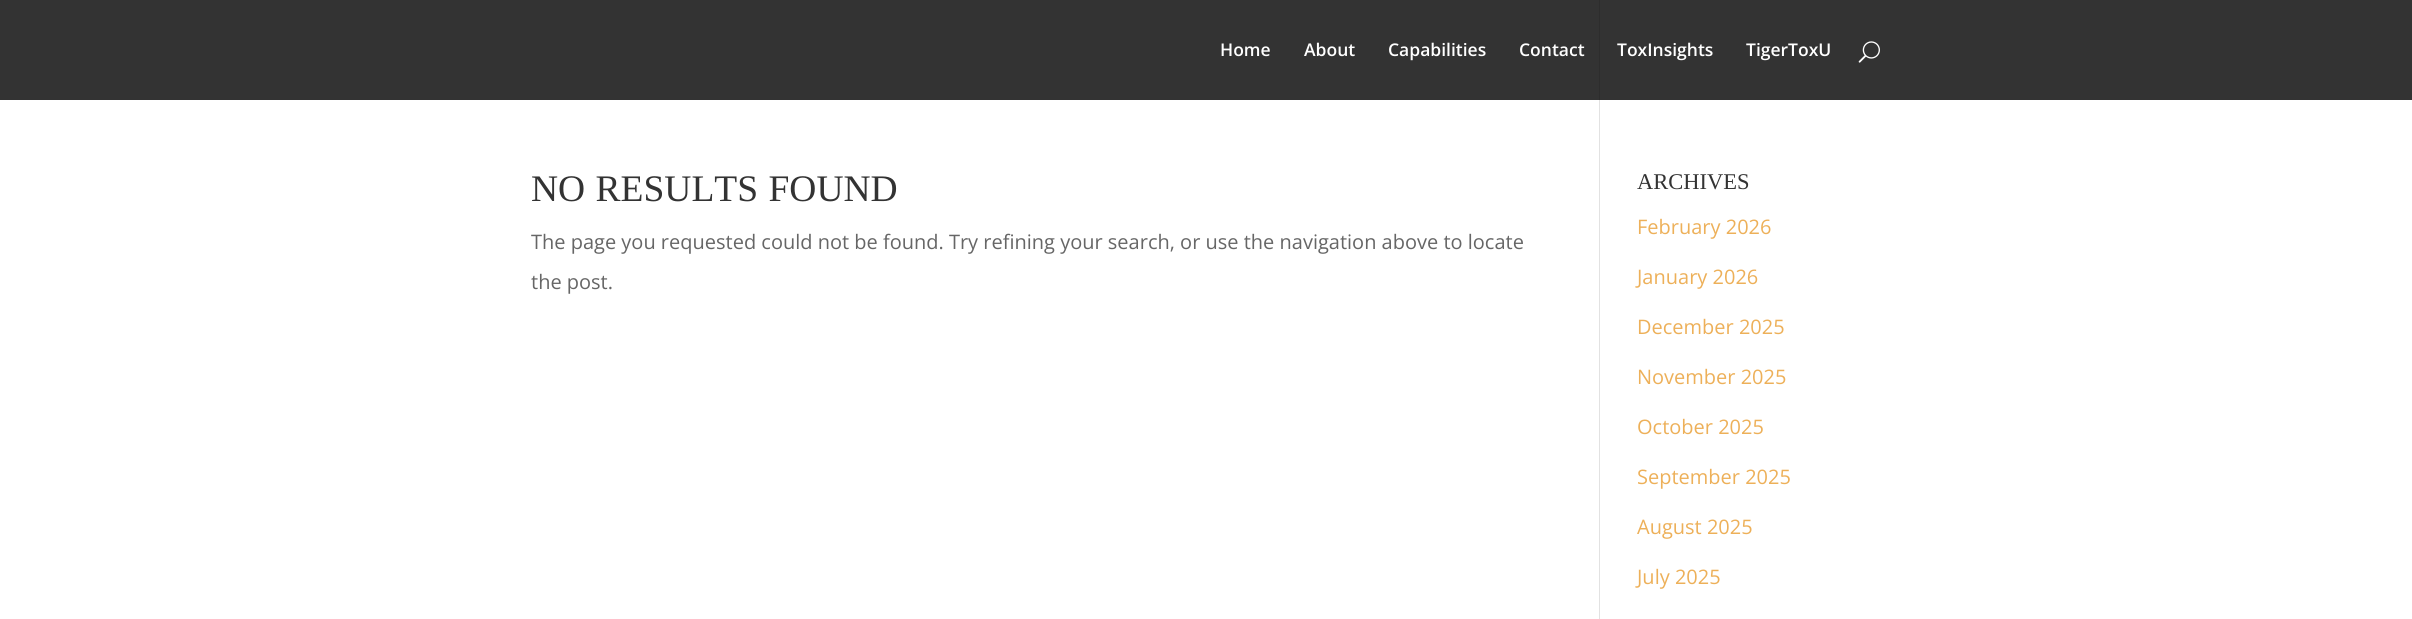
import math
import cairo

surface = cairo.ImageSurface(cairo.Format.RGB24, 2412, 619)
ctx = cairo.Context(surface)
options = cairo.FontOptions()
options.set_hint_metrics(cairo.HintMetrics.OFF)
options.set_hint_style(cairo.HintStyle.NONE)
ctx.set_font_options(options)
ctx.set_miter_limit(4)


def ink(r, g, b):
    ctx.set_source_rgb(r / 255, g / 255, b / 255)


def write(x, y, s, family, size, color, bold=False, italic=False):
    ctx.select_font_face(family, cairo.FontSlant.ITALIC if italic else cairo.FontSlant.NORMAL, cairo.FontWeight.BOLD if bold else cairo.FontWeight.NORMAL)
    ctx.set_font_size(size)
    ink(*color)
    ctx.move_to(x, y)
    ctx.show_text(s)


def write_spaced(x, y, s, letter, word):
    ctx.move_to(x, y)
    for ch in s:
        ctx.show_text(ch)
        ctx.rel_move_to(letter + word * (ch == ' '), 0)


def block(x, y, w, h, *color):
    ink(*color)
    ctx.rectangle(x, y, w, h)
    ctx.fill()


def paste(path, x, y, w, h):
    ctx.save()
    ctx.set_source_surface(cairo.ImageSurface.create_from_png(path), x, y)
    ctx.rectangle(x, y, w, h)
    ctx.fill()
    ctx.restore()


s1 = dict(family="Open Sans SemiBold", size=17.5, color=(255, 255, 255))
s2 = dict(family="Open Sans", size=20, color=(102, 102, 102))
s3 = dict(family="Liberation Serif", size=22.5, color=(51, 51, 51))
s4 = dict(family="Open Sans", size=20, color=(237, 176, 89))

ink(255, 255, 255)
ctx.paint()
block(0, 0, 2412, 100, 51, 51, 51)
write(1220, 56, "Home", **s1)
write(1304, 56, "About", **s1)
write(1388, 56, "Capabilities", **s1)
write(1519, 56, "Contact", **s1)
write(1617, 56, "ToxInsights", **s1)
write(1746, 56, "TigerToxU", **s1)
paste("pic1.png", 1858, 41, 22, 22)
block(1599, 100, 1, 519, 226, 226, 226)
block(1599, 0, 1, 100, 45, 45, 45)
ctx.select_font_face("Liberation Serif")
ctx.set_font_size(37.5)
ink(51, 51, 51)
write_spaced(531, 201, "NO RESULTS FOUND", 0, 1)
write(531, 249, "The page you requested could not be found. Try refining your search, or use the navigation above to locate", **s2)
write(531, 289, "the post.", **s2)
write(1637, 189, "ARCHIVES", **s3)
write(1637, 234, "February 2026", **s4)
write(1637, 284, "January 2026", **s4)
write(1637, 334, "December 2025", **s4)
write(1637, 384, "November 2025", **s4)
write(1637, 434, "October 2025", **s4)
write(1637, 484, "September 2025", **s4)
write(1637, 534, "August 2025", **s4)
write(1637, 584, "July 2025", **s4)
surface.write_to_png("screenshot.png")
